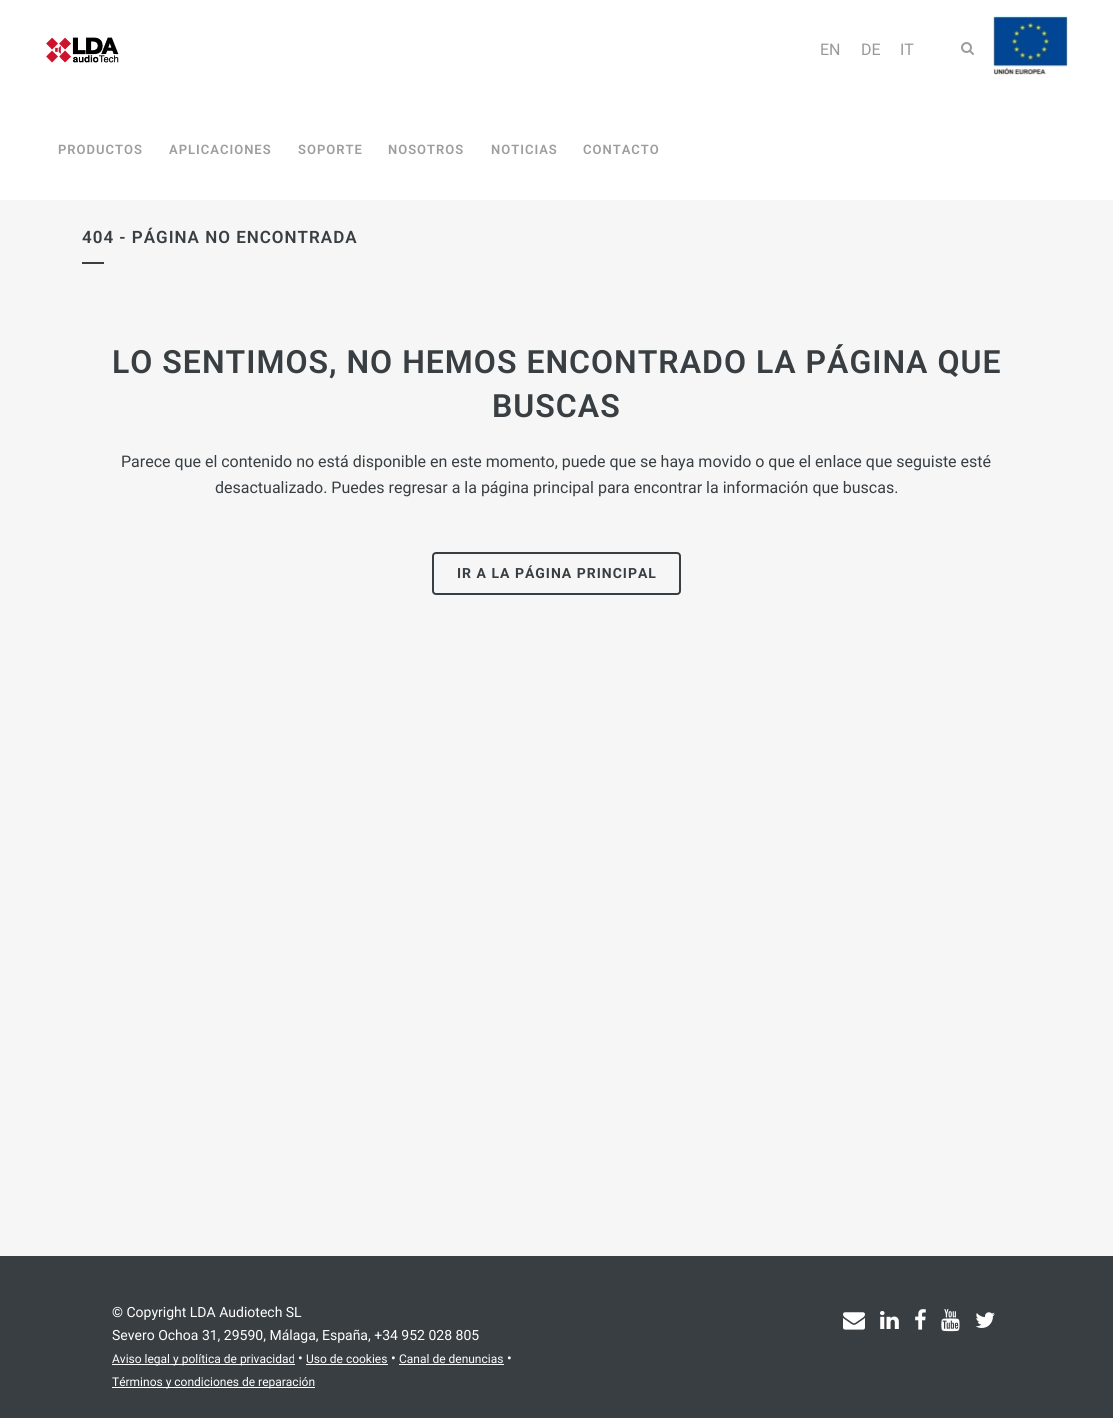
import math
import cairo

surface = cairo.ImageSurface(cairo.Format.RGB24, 1113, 1418)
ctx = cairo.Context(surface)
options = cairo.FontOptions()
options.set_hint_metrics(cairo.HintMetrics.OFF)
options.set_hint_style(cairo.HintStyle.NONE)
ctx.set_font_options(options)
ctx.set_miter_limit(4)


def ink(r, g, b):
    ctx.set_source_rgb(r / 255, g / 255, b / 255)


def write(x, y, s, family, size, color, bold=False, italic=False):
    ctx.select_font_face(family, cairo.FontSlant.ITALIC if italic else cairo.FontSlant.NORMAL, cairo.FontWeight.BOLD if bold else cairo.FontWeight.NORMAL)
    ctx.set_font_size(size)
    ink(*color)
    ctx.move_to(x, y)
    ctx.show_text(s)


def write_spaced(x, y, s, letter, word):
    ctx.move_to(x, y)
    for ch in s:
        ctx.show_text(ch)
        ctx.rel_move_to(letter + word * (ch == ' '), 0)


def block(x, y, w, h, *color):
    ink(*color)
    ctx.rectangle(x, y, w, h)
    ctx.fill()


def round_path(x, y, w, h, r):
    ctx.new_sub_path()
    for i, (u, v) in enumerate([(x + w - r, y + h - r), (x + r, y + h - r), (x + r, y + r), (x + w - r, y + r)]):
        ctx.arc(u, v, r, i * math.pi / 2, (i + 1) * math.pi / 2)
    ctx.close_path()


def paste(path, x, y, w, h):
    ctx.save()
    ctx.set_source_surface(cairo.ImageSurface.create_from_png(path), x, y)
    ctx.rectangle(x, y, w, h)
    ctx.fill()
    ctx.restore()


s1 = dict(family="Roboto", size=16, color=(151, 153, 155))
s2 = dict(family="Roboto", size=16, color=(56, 62, 66))
s3 = dict(family="Roboto", size=14, color=(255, 255, 255))
s4 = dict(family="Roboto", size=12, color=(255, 255, 255))

ink(246, 246, 246)
ctx.paint()
block(0, 0, 1113, 200, 255, 255, 255)
paste("pic1.png", 46, 37, 73, 26)
write(820, 55, "EN", **s1)
write(861, 55, "DE", **s1)
write(900, 55, "IT", **s1)
paste("pic2.png", 961, 42, 13, 13)
paste("pic3.png", 993, 16, 75, 59)
ctx.select_font_face("Roboto SemiBold")
ctx.set_font_size(13)
ink(157, 157, 157)
write_spaced(58, 154, "PRODUCTOS", 1, 0)
write_spaced(169, 154, "APLICACIONES", 1, 0)
write_spaced(298, 154, "SOPORTE", 1, 0)
write_spaced(388, 154, "NOSOTROS", 1, 0)
write_spaced(491, 154, "NOTICIAS", 1, 0)
write_spaced(583, 154, "CONTACTO", 1, 0)
ctx.set_font_size(17)
ink(56, 62, 66)
write_spaced(82, 243, "404 - PÁGINA NO ENCONTRADA", 1, 0)
block(82, 262, 22, 2, 56, 62, 66)
ctx.set_font_size(32)
write_spaced(112, 373, "LO SENTIMOS, NO HEMOS ENCONTRADO LA PÁGINA QUE", 1, 0)
write_spaced(492, 417, "BUSCAS", 1, 0)
write(121, 467, "Parece que el contenido no está disponible en este momento, puede que se haya movido o que el enlace que seguiste esté", **s2)
write(215, 493, "desactualizado. Puedes regresar a la página principal para encontrar la información que buscas.", **s2)
round_path(433, 553, 247, 41, 3)
ctx.stroke()
ctx.select_font_face("Roboto", cairo.FontSlant.NORMAL, cairo.FontWeight.BOLD)
ctx.set_font_size(14)
write_spaced(457, 578, "IR A LA PÁGINA PRINCIPAL", 1, 0)
block(0, 1256, 1113, 162, 56, 62, 66)
write(112, 1317, "© Copyright LDA Audiotech SL", **s3)
write(112, 1340, "Severo Ochoa 31, 29590, Málaga, España, +34 952 028 805", **s3)
block(112, 1364, 183, 1, 255, 255, 255)
write(112, 1363, "Aviso legal y política de privacidad", **s4)
write(298, 1363, "•", **s3)
write(306, 1363, "Uso de cookies", **s4)
block(306, 1364, 82, 1, 255, 255, 255)
write(391, 1363, "•", **s3)
write(399, 1363, "Canal de denuncias", **s4)
block(399, 1364, 105, 1, 255, 255, 255)
write(507, 1363, "•", **s3)
block(112, 1387, 203, 1, 255, 255, 255)
write(112, 1386, "Términos y condiciones de reparación", **s4)
paste("pic4.png", 843, 1312, 22, 18)
paste("pic5.png", 880, 1311, 19, 18)
paste("pic6.png", 915, 1309, 11, 21)
paste("pic7.png", 941, 1309, 19, 23)
paste("pic8.png", 975, 1312, 20, 16)
surface.write_to_png("screenshot.png")
